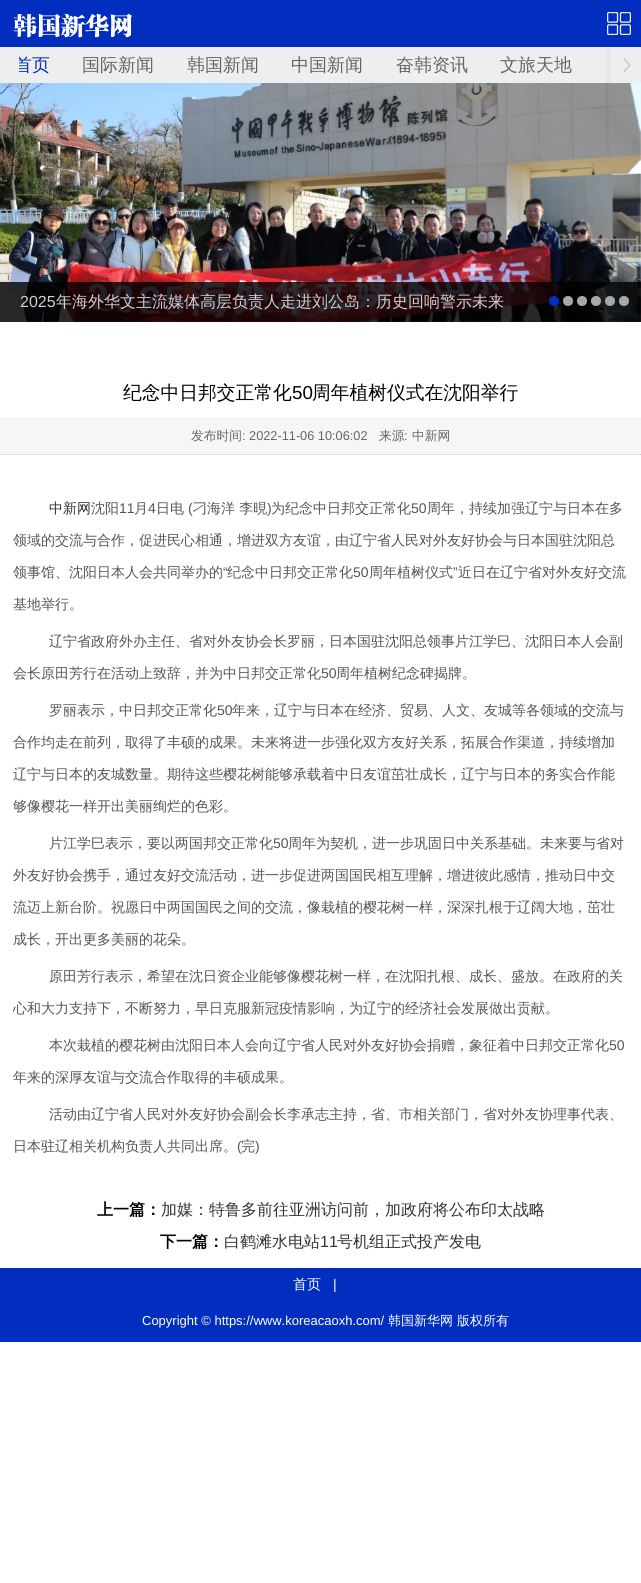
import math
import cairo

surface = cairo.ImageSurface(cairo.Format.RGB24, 641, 1583)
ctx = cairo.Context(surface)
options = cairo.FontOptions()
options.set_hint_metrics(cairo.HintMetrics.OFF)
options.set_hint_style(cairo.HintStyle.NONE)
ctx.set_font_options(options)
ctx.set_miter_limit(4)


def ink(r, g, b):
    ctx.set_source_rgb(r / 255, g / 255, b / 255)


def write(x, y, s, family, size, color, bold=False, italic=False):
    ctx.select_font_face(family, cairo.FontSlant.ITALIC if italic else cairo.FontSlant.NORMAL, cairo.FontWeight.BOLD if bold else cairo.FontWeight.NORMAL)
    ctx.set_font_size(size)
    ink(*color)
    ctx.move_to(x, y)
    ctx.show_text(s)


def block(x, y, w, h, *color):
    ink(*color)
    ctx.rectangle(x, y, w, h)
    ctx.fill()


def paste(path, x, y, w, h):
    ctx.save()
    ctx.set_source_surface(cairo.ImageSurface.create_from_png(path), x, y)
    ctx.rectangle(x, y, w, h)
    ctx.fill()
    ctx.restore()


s1 = dict(family="WenQuanYi Zen Hei Medium", size=18, color=(2, 46, 191))
s2 = dict(family="WenQuanYi Zen Hei Medium", size=18, color=(102, 102, 102))
s3 = dict(family="Liberation Sans", size=16, color=(205, 206, 206))
s4 = dict(family="WenQuanYi Zen Hei Medium", size=16, color=(211, 207, 208))
s5 = dict(family="WenQuanYi Zen Hei Medium", size=18.75, color=(0, 0, 0))
s6 = dict(family="Liberation Sans", size=18.75, color=(0, 0, 0))
s7 = dict(family="WenQuanYi Zen Hei Medium", size=12.75, color=(102, 102, 102))
s8 = dict(family="Liberation Sans", size=12.75, color=(102, 102, 102))
s9 = dict(family="WenQuanYi Zen Hei Medium", size=14, color=(51, 51, 51))
s10 = dict(family="WenQuanYi Zen Hei Medium", size=14, color=(85, 85, 85))
s11 = dict(family="Liberation Sans", size=14, color=(85, 85, 85))
s12 = dict(family="WenQuanYi Zen Hei", size=16, color=(0, 0, 0), bold=True)
s13 = dict(family="WenQuanYi Zen Hei Medium", size=16, color=(51, 51, 51))
s14 = dict(family="Liberation Sans", size=16, color=(51, 51, 51))
s15 = dict(family="WenQuanYi Zen Hei Medium", size=14, color=(255, 255, 255))
s16 = dict(family="Liberation Sans", size=14, color=(255, 255, 255))
s17 = dict(family="Liberation Sans", size=13, color=(255, 255, 255))
s18 = dict(family="WenQuanYi Zen Hei Medium", size=13, color=(255, 255, 255))

ink(255, 255, 255)
ctx.paint()
block(0, 0, 641, 47, 2, 46, 191)
paste("pic1.png", 13, 13, 119, 25)
paste("pic2.png", 607, 12, 24, 23)
block(19, 47, 622, 36, 238, 238, 238)
write(14, 71, "首页", **s1)
block(0, 47, 19, 36, 238, 238, 238)
write(82, 71, "国际新闻", **s2)
write(187, 71, "韩国新闻", **s2)
write(291, 71, "中国新闻", **s2)
write(396, 71, "奋韩资讯", **s2)
write(500, 71, "文旅天地", **s2)
paste("pic3.png", 606, 47, 25, 36)
paste("pic4.png", 0, 83, 641, 239)
ctx.set_source_rgba(0, 0, 0, 0.8)
ctx.rectangle(0, 282, 641, 40)
ctx.fill()
write(20, 307, "2025", **s3)
write(56, 307, "年海外华文主流媒体高层负责人走进刘公岛：历史回响警示未来", **s4)
ink(2, 46, 191)
ctx.new_path()
ctx.arc(554, 301, 5, 0, 2 * math.pi)
ctx.fill()
ink(168, 168, 168)
ctx.arc(568, 301, 5, 0, 2 * math.pi)
ctx.fill()
ctx.arc(582, 301, 5, 0, 2 * math.pi)
ctx.fill()
ctx.arc(596, 301, 5, 0, 2 * math.pi)
ctx.fill()
ctx.arc(610, 301, 5, 0, 2 * math.pi)
ctx.fill()
ctx.arc(624, 301, 5, 0, 2 * math.pi)
ctx.fill()
write(123, 399, "纪念中日邦交正常化", **s5)
write(292, 399, "50", **s6)
write(312, 399, "周年植树仪式在沈阳举行", **s5)
block(0, 417, 641, 38, 246, 246, 246)
ctx.new_path()
ctx.move_to(0, 454.5)
ctx.line_to(641, 454.5)
ink(204, 204, 204)
ctx.set_line_width(1)
ctx.set_dash([1, 1])
ctx.stroke()
write(191, 440, "发布时间", **s7)
write(242, 440, ": 2022-11-06 10:06:02", **s8)
write(379, 440, "来源", **s7)
write(404, 440, ":", **s8)
write(412, 440, "中新网", **s7)
write(49, 513, "中新网", **s9)
write(91, 513, "沈阳", **s10)
write(119, 513, "11", **s11)
write(134, 513, "月", **s10)
write(148, 513, "4", **s11)
write(156, 513, "日电", **s10)
write(188, 513, "(", **s11)
write(193, 513, "刁海洋 李晛", **s10)
write(267, 513, ")", **s11)
write(271, 513, "为纪念中日邦交正常化", **s10)
write(411, 513, "50", **s11)
write(427, 513, "周年，持续加强辽宁与日本在多", **s10)
write(13, 545, "领域的交流与合作，促进民心相通，增进双方友谊，由辽宁省人民对外友好协会与日本国驻沈阳总", **s10)
write(13, 577, "领事馆、沈阳日本人会共同举办的", **s10)
write(223, 577, "“", **s11)
write(227, 577, "纪念中日邦交正常化", **s10)
write(353, 577, "50", **s11)
write(369, 577, "周年植树仪式", **s10)
write(453, 577, "”", **s11)
write(458, 577, "近日在辽宁省对外友好交流", **s10)
write(13, 609, "基地举行。", **s10)
write(49, 646, "辽宁省政府外办主任、省对外友协会长罗丽，日本国驻沈阳总领事片江学巳、沈阳日本人会副", **s10)
write(13, 678, "会长原田芳行在活动上致辞，并为中日邦交正常化", **s10)
write(321, 678, "50", **s11)
write(336, 678, "周年植树纪念碑揭牌。", **s10)
write(49, 715, "罗丽表示，中日邦交正常化", **s10)
write(217, 715, "50", **s11)
write(232, 715, "年来，辽宁与日本在经济、贸易、人文、友城等各领域的交流与", **s10)
write(13, 747, "合作均走在前列，取得了丰硕的成果。未来将进一步强化双方友好关系，拓展合作渠道，持续增加", **s10)
write(13, 779, "辽宁与日本的友城数量。期待这些樱花树能够承载着中日友谊茁壮成长，辽宁与日本的务实合作能", **s10)
write(13, 811, "够像樱花一样开出美丽绚烂的色彩。", **s10)
write(49, 848, "片江学巳表示，要以两国邦交正常化", **s10)
write(273, 848, "50", **s11)
write(288, 848, "周年为契机，进一步巩固日中关系基础。未来要与省对", **s10)
write(13, 880, "外友好协会携手，通过友好交流活动，进一步促进两国国民相互理解，增进彼此感情，推动日中交", **s10)
write(13, 912, "流迈上新台阶。祝愿日中两国国民之间的交流，像栽植的樱花树一样，深深扎根于辽阔大地，茁壮", **s10)
write(13, 944, "成长，开出更多美丽的花朵。", **s10)
write(49, 981, "原田芳行表示，希望在沈日资企业能够像樱花树一样，在沈阳扎根、成长、盛放。在政府的关", **s10)
write(13, 1013, "心和大力支持下，不断努力，早日克服新冠疫情影响，为辽宁的经济社会发展做出贡献。", **s10)
write(49, 1050, "本次栽植的樱花树由沈阳日本人会向辽宁省人民对外友好协会捐赠，象征着中日邦交正常化", **s10)
write(609, 1050, "50", **s11)
write(13, 1082, "年来的深厚友谊与交流合作取得的丰硕成果。", **s10)
write(49, 1119, "活动由辽宁省人民对外友好协会副会长李承志主持，省、市相关部门，省对外友协理事代表、", **s10)
write(13, 1151, "日本驻辽相关机构负责人共同出席。", **s10)
write(237, 1151, "(", **s11)
write(241, 1151, "完", **s10)
write(255, 1151, ")", **s11)
write(97, 1215, "上一篇：", **s12)
write(161, 1215, "加媒：特鲁多前往亚洲访问前，加政府将公布印太战略", **s13)
write(160, 1247, "下一篇：", **s12)
write(224, 1247, "白鹤滩水电站", **s13)
write(320, 1247, "11", **s14)
write(337, 1247, "号机组正式投产发电", **s13)
block(0, 1268, 641, 74, 2, 46, 191)
write(293, 1289, "首页", **s15)
write(333, 1289, "|", **s16)
write(142, 1325, "Copyright © https://www.koreacaoxh.com/", **s17)
write(388, 1325, "韩国新华网 版权所有", **s18)
surface.write_to_png("screenshot.png")
